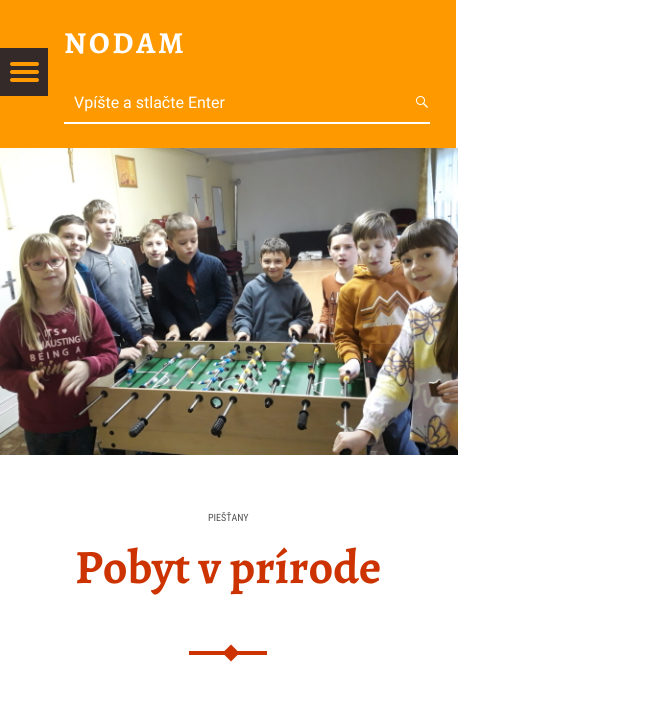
import math
import cairo

surface = cairo.ImageSurface(cairo.Format.RGB24, 651, 715)
ctx = cairo.Context(surface)
options = cairo.FontOptions()
options.set_hint_metrics(cairo.HintMetrics.OFF)
options.set_hint_style(cairo.HintStyle.NONE)
ctx.set_font_options(options)
ctx.set_miter_limit(4)


def ink(r, g, b):
    ctx.set_source_rgb(r / 255, g / 255, b / 255)


def write(x, y, s, family, size, color, bold=False, italic=False):
    ctx.select_font_face(family, cairo.FontSlant.ITALIC if italic else cairo.FontSlant.NORMAL, cairo.FontWeight.BOLD if bold else cairo.FontWeight.NORMAL)
    ctx.set_font_size(size)
    ink(*color)
    ctx.move_to(x, y)
    ctx.show_text(s)


def write_spaced(x, y, s, letter, word):
    ctx.move_to(x, y)
    for ch in s:
        ctx.show_text(ch)
        ctx.rel_move_to(letter + word * (ch == ' '), 0)


def block(x, y, w, h, *color):
    ink(*color)
    ctx.rectangle(x, y, w, h)
    ctx.fill()


def round_path(x, y, w, h, r):
    ctx.new_sub_path()
    for i, (u, v) in enumerate([(x + w - r, y + h - r), (x + r, y + h - r), (x + r, y + r), (x + w - r, y + r)]):
        ctx.arc(u, v, r, i * math.pi / 2, (i + 1) * math.pi / 2)
    ctx.close_path()


def paste(path, x, y, w, h):
    ctx.save()
    ctx.set_source_surface(cairo.ImageSurface.create_from_png(path), x, y)
    ctx.rectangle(x, y, w, h)
    ctx.fill()
    ctx.restore()


s1 = dict(family="Roboto", size=16, color=(255, 255, 255))
s2 = dict(family="Roboto Condensed", size=10, color=(82, 82, 82))
s3 = dict(family="Alegreya", size=48, color=(204, 51, 0), bold=True)

ink(255, 255, 255)
ctx.paint()
block(0, 0, 456, 148, 255, 153, 0)
ctx.select_font_face("Alegreya", cairo.FontSlant.NORMAL, cairo.FontWeight.BOLD)
ctx.set_font_size(30.5)
ink(255, 255, 255)
write_spaced(64, 53, "NODAM", 2.75, 0)
block(0, 48, 48, 48, 53, 42, 42)
ink(255, 153, 0)
round_path(10, 62, 29, 4, 2)
ctx.fill()
round_path(10, 70, 29, 4, 2)
ctx.fill()
round_path(10, 78, 29, 4, 2)
ctx.fill()
block(64, 122, 366, 2, 255, 255, 255)
write(74, 108, "Vpíšte a stlačte Enter", **s1)
paste("pic1.png", 416, 96, 12, 12)
paste("pic2.png", 0, 148, 458, 307)
write(208, 521, "PIEŠŤANY", **s2)
write(75, 583, "Pobyt v prírode", **s3)
block(189, 651, 78, 4, 204, 51, 0)
ctx.new_path()
ctx.move_to(231, 644.5)
ctx.line_to(239.5, 653)
ctx.line_to(231, 661.5)
ctx.line_to(222.5, 653)
ctx.close_path()
ctx.fill()
surface.write_to_png("screenshot.png")
